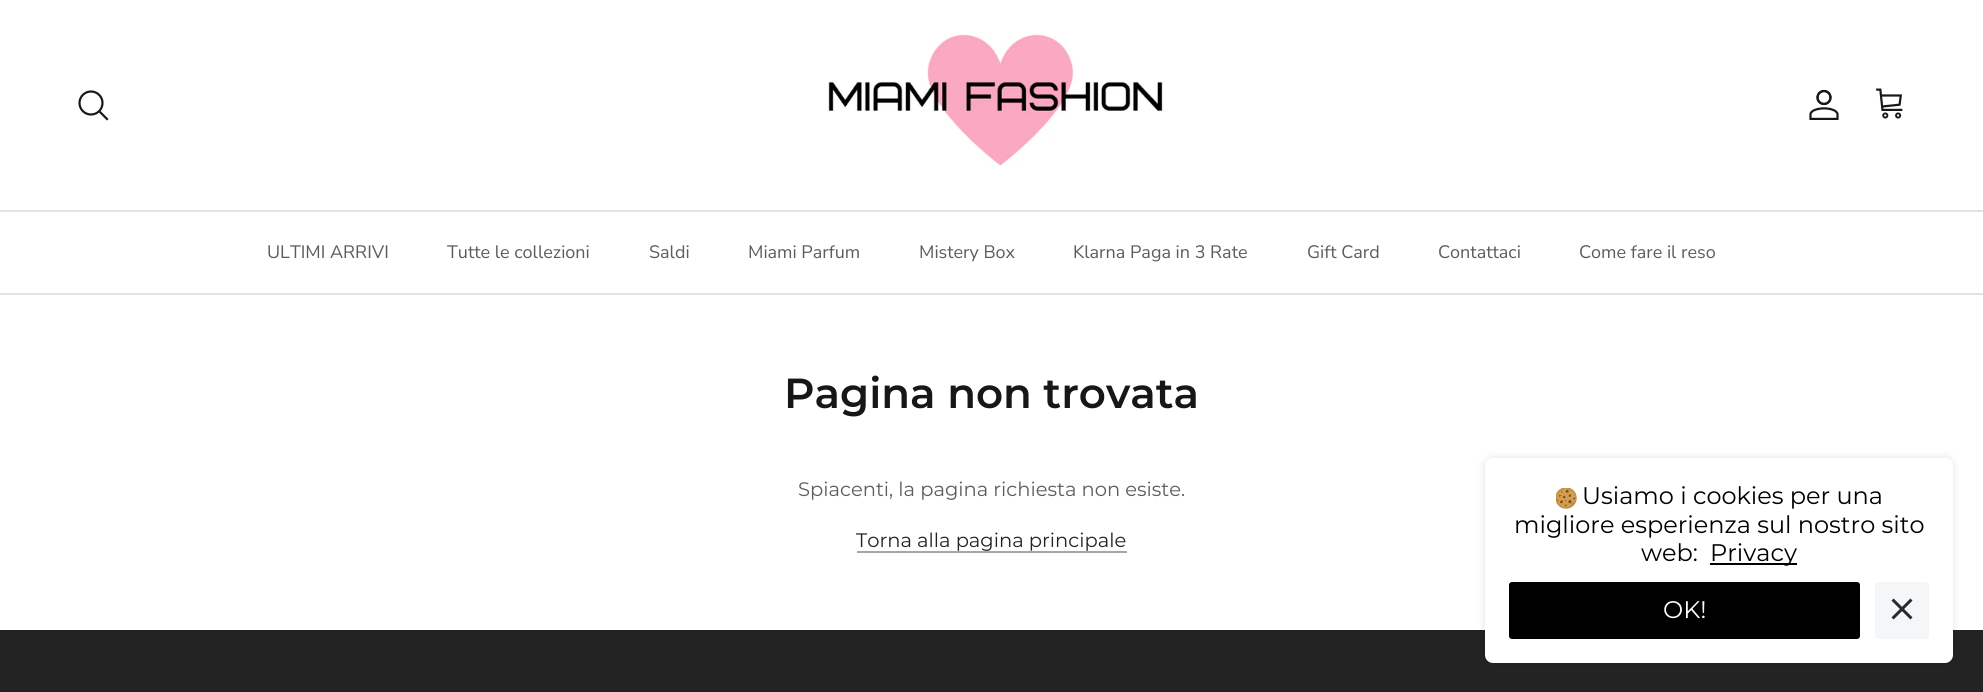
import math
import cairo

surface = cairo.ImageSurface(cairo.Format.RGB24, 1983, 692)
ctx = cairo.Context(surface)
options = cairo.FontOptions()
options.set_hint_metrics(cairo.HintMetrics.OFF)
options.set_hint_style(cairo.HintStyle.NONE)
ctx.set_font_options(options)
ctx.set_miter_limit(4)


def ink(r, g, b):
    ctx.set_source_rgb(r / 255, g / 255, b / 255)


def write(x, y, s, family, size, color, bold=False, italic=False):
    ctx.select_font_face(family, cairo.FontSlant.ITALIC if italic else cairo.FontSlant.NORMAL, cairo.FontWeight.BOLD if bold else cairo.FontWeight.NORMAL)
    ctx.set_font_size(size)
    ink(*color)
    ctx.move_to(x, y)
    ctx.show_text(s)


def block(x, y, w, h, *color):
    ink(*color)
    ctx.rectangle(x, y, w, h)
    ctx.fill()


def round_path(x, y, w, h, r):
    ctx.new_sub_path()
    for i, (u, v) in enumerate([(x + w - r, y + h - r), (x + r, y + h - r), (x + r, y + r), (x + w - r, y + r)]):
        ctx.arc(u, v, r, i * math.pi / 2, (i + 1) * math.pi / 2)
    ctx.close_path()


def blur_box(x, y, w, h, r, blur, alpha):
    ctx.push_group_with_content(cairo.Content.ALPHA)
    ctx.set_operator(cairo.Operator.SOURCE)
    for i in range(15, -16, -2):
        e = blur * i / 6
        if min(w, h) + 2 * e > 0:
            ctx.set_source_rgba(0, 0, 0, alpha * math.erfc((i - 1) / 8.5) / 2)
            round_path(x - e, y - e, w + 2 * e, h + 2 * e, max(0, min(r + e + blur * .6, min(w, h) / 2 + e)))
            ctx.fill()
    ctx.mask(ctx.pop_group())


def paste(path, x, y, w, h):
    ctx.save()
    ctx.set_source_surface(cairo.ImageSurface.create_from_png(path), x, y)
    ctx.rectangle(x, y, w, h)
    ctx.fill()
    ctx.restore()


s1 = dict(family="Nunito Sans", size=18, color=(92, 92, 92))
s2 = dict(family="Montserrat SemiBold", size=42, color=(23, 23, 23))
s3 = dict(family="Montserrat", size=19.5, color=(92, 92, 92))
s4 = dict(family="Montserrat", size=19.5, color=(35, 35, 35))
s5 = dict(family="Montserrat", size=24, color=(0, 0, 0))
s6 = dict(family="Montserrat", size=24, color=(255, 255, 255))

ink(255, 255, 255)
ctx.paint()
block(0, 210, 1983, 2, 223, 227, 232)
ctx.arc(91, 103, 11.5, 0, 2 * math.pi)
ink(23, 23, 23)
ctx.set_line_width(2.2)
ctx.stroke()
ctx.new_path()
ctx.move_to(100.5, 112.5)
ctx.line_to(107, 119)
ctx.set_line_cap(cairo.LineCap.SQUARE)
ctx.stroke()
paste("pic1.png", 828, 33, 336, 135)
paste("pic2.png", 1809, 89, 30, 31)
paste("pic3.png", 1876, 88, 27, 31)
block(0, 293, 1983, 2, 223, 227, 232)
write(267, 258, "ULTIMI ARRIVI", **s1)
write(447, 258, "Tutte le collezioni", **s1)
write(649, 258, "Saldi", **s1)
write(748, 258, "Miami Parfum", **s1)
write(919, 258, "Mistery Box", **s1)
write(1073, 258, "Klarna Paga in 3 Rate", **s1)
write(1307, 258, "Gift Card", **s1)
write(1438, 258, "Contattaci", **s1)
write(1579, 258, "Come fare il reso", **s1)
write(784, 408, "Pagina non trovata", **s2)
write(798, 496, "Spiacenti, la pagina richiesta non esiste.", **s3)
write(856, 547, "Torna alla pagina principale", **s4)
block(857, 551, 270, 2, 167, 167, 167)
block(0, 630, 1983, 62, 35, 35, 35)
ink(255, 255, 255)
round_path(1485, 458, 468, 205, 8)
ctx.fill()
ctx.save()
ctx.set_fill_rule(cairo.FillRule.EVEN_ODD)
ctx.new_path()
ctx.move_to(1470, 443)
ctx.line_to(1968, 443)
ctx.line_to(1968, 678)
ctx.line_to(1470, 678)
ctx.close_path()
ctx.move_to(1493, 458)
ctx.line_to(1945, 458)
ctx.curve_to(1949.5, 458, 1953, 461.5, 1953, 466)
ctx.line_to(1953, 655)
ctx.curve_to(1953, 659.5, 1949.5, 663, 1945, 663)
ctx.line_to(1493, 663)
ctx.curve_to(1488.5, 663, 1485, 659.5, 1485, 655)
ctx.line_to(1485, 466)
ctx.curve_to(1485, 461.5, 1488.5, 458, 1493, 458)
ctx.close_path()
ctx.clip()
ink(0, 0, 0)
blur_box(1485, 458, 468, 205, 8, 4.5, 0.12)
ctx.restore()
paste("pic4.png", 1556, 488, 21, 21)
write(1582, 504, "Usiamo i cookies per una", **s5)
write(1514, 533, "migliore esperienza sul nostro sito", **s5)
write(1641, 561, "web:", **s5)
block(1710, 563, 87, 2, 0, 0, 0)
write(1710, 561, "Privacy", **s5)
round_path(1509, 582, 351, 57, 3)
ctx.fill()
write(1663, 618, "OK!", **s6)
ink(244, 246, 248)
round_path(1875, 582, 54, 57, 3)
ctx.fill()
paste("pic5.png", 1891, 598, 22, 22)
surface.write_to_png("screenshot.png")
